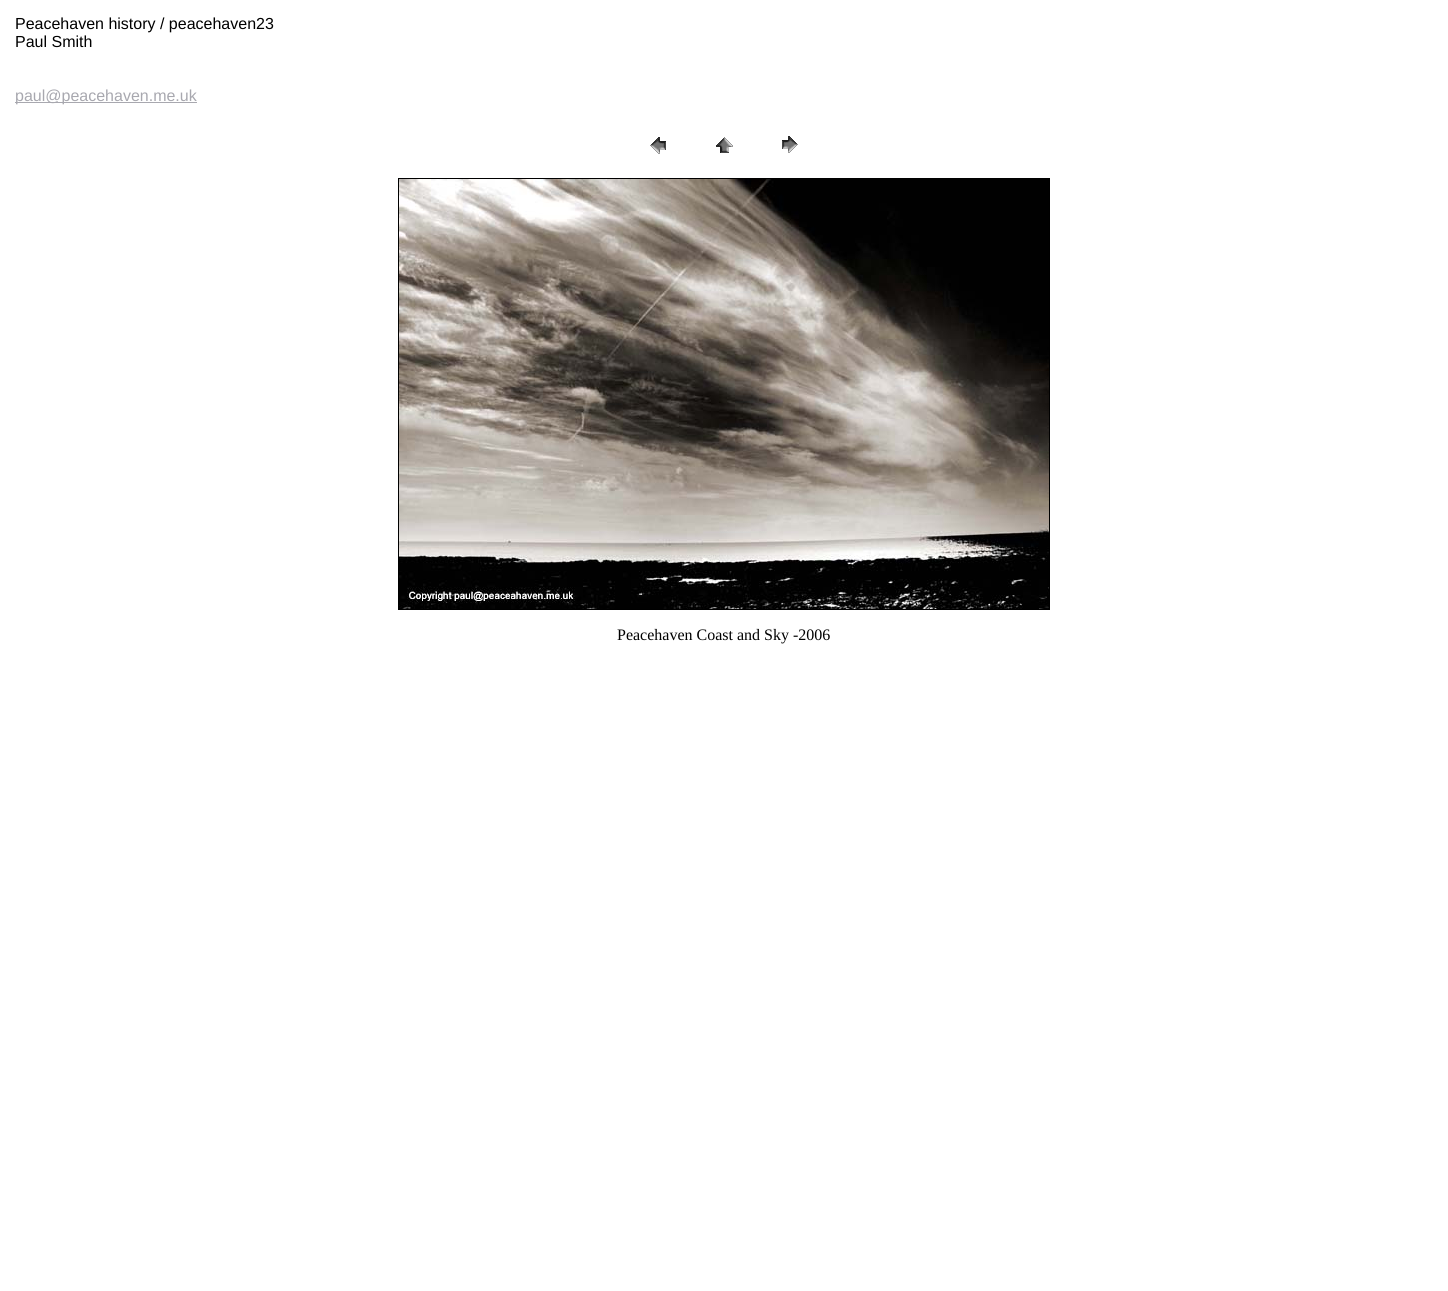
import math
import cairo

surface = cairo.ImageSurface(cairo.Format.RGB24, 1448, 1291)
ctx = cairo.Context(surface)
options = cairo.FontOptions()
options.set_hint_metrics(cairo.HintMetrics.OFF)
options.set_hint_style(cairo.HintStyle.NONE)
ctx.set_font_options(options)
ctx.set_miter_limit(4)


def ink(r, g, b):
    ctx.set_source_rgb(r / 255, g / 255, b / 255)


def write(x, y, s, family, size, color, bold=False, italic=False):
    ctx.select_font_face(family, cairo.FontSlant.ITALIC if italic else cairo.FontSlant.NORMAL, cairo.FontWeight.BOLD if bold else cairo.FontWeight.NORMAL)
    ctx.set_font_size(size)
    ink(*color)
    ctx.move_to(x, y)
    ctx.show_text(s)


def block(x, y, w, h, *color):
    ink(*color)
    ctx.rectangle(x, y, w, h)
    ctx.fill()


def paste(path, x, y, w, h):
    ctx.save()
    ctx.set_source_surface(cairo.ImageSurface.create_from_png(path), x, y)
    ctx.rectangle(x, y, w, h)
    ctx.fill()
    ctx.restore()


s1 = dict(family="Liberation Sans", size=16, color=(0, 0, 0))
s2 = dict(family="Liberation Sans", size=16, color=(168, 168, 175))
s3 = dict(family="Liberation Serif", size=16, color=(0, 0, 0))

ink(255, 255, 255)
ctx.paint()
write(15, 29, "Peacehaven history / peacehaven23", **s1)
write(15, 47, "Paul Smith", **s1)
block(15, 102, 182, 1, 168, 168, 175)
write(15, 101, "paul@peacehaven.me.uk", **s2)
paste("pic1.png", 650, 137, 16, 17)
paste("pic2.png", 716, 137, 17, 16)
paste("pic3.png", 782, 136, 16, 17)
ctx.rectangle(398.5, 178.5, 651, 431)
ink(0, 0, 0)
ctx.set_line_width(1)
ctx.stroke()
paste("pic4.png", 399, 179, 650, 430)
write(617, 640, "Peacehaven Coast and Sky -2006", **s3)
surface.write_to_png("screenshot.png")
